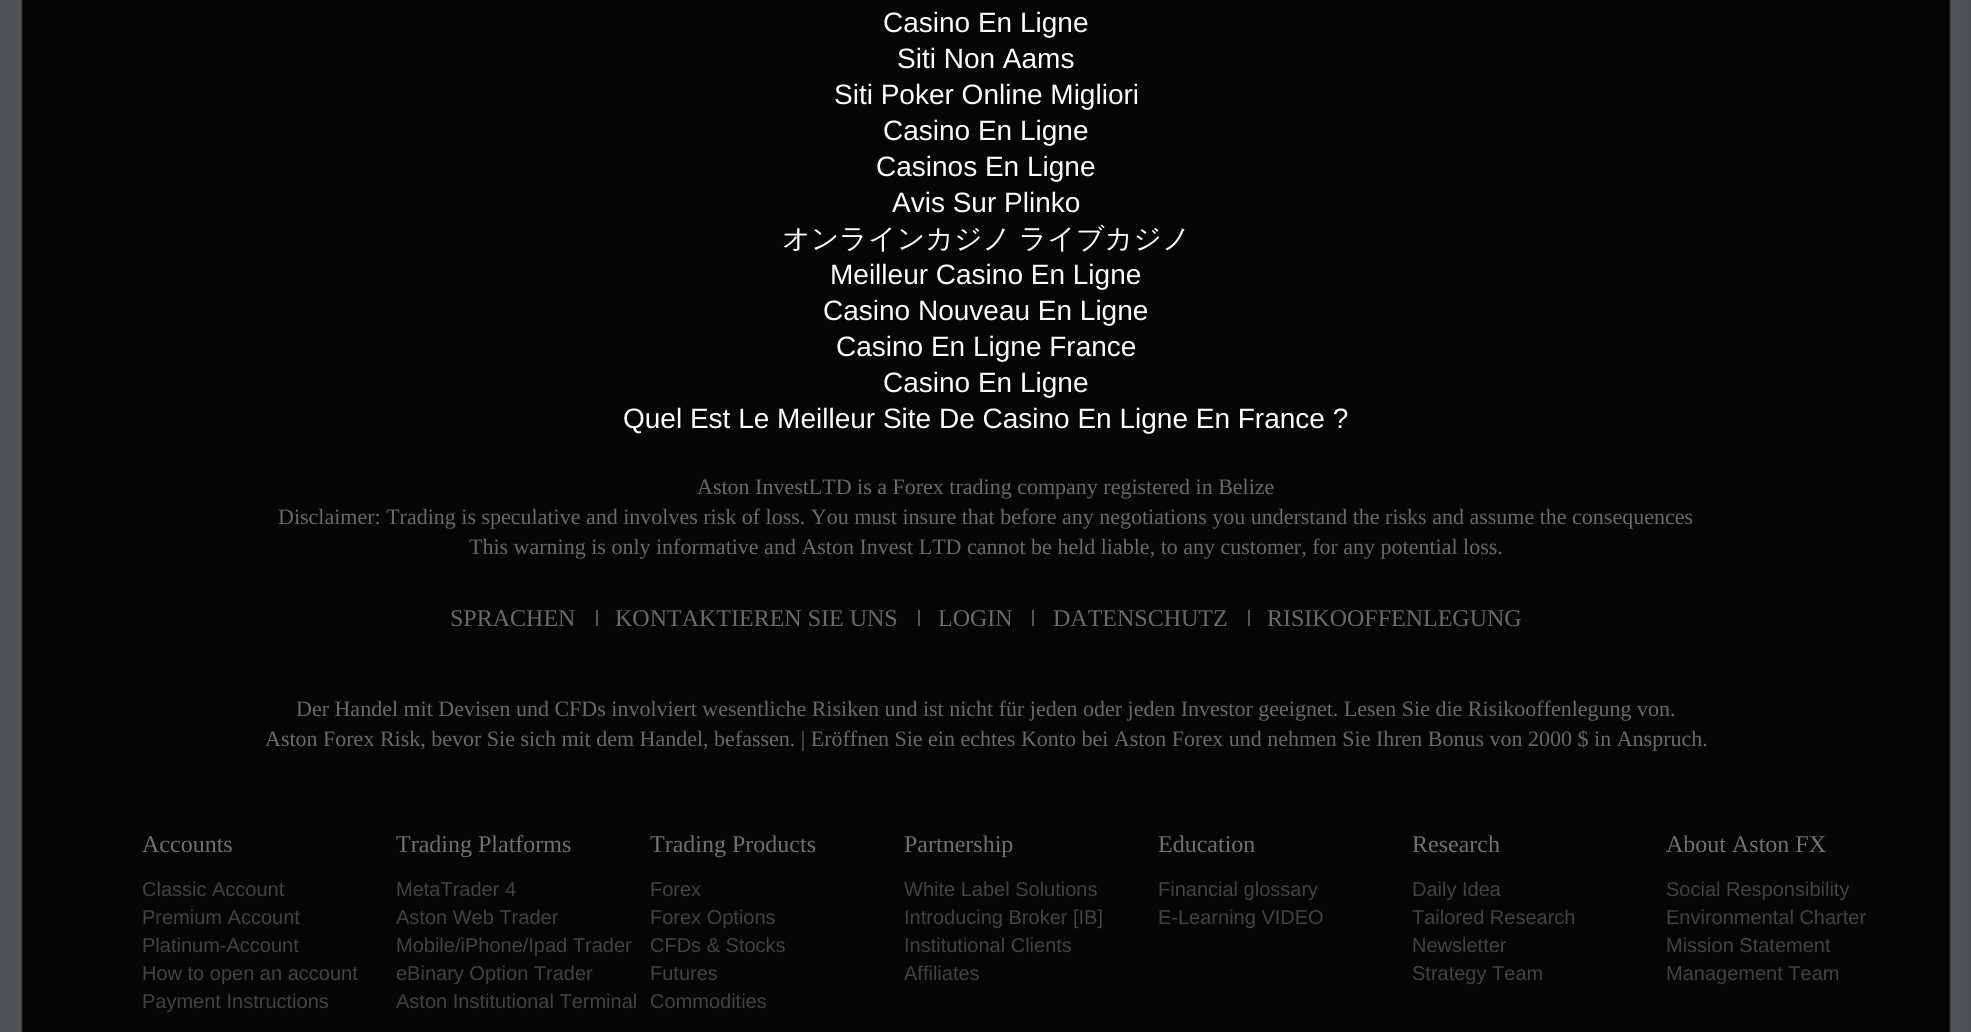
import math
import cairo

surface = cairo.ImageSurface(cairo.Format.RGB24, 1971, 1032)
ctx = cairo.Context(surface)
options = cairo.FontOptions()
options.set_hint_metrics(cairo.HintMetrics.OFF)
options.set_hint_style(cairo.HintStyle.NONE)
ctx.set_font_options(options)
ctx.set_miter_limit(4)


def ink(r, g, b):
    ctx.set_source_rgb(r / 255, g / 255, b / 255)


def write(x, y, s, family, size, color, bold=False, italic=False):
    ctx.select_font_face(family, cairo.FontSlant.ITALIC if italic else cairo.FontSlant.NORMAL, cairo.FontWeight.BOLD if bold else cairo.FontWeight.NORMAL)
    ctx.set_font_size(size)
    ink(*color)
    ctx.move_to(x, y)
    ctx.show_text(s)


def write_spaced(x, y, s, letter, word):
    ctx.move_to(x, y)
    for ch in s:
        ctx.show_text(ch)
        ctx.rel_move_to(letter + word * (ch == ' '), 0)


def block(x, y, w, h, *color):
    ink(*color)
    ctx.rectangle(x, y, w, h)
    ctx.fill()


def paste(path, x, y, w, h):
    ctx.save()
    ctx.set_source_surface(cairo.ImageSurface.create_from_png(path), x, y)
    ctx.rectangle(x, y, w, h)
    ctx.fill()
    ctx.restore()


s1 = dict(family="Liberation Sans", size=28, color=(255, 255, 255))
s2 = dict(family="Liberation Serif", size=22, color=(104, 105, 110))
s3 = dict(family="Liberation Serif", size=24, color=(104, 105, 110))
s4 = dict(family="Liberation Serif", size=24, color=(112, 112, 112))
s5 = dict(family="Liberation Sans", size=20, color=(65, 66, 69))

ink(255, 255, 255)
ctx.paint()
paste("pic1.png", 0, 0, 1971, 1032)
write(883, 32, "Casino En Ligne", **s1)
write(897, 68, "Siti Non Aams", **s1)
write(834, 104, "Siti Poker Online Migliori", **s1)
write(883, 140, "Casino En Ligne", **s1)
write(876, 176, "Casinos En Ligne", **s1)
write(892, 212, "Avis Sur Plinko", **s1)
ctx.select_font_face("WenQuanYi Zen Hei Medium")
write_spaced(782, 248, "オンラインカジノ ライブカジノ", 0, -1)
write(830, 284, "Meilleur Casino En Ligne", **s1)
write(823, 320, "Casino Nouveau En Ligne", **s1)
write(836, 356, "Casino En Ligne France", **s1)
write(883, 392, "Casino En Ligne", **s1)
write(623, 428, "Quel Est Le Meilleur Site De Casino En Ligne En France ?", **s1)
write(697, 494, "Aston InvestLTD is a Forex trading company registered in Belize", **s2)
write(278, 524, "Disclaimer: Trading is speculative and involves risk of loss. You must insure that before any negotiations you understand the risks and assume the consequences", **s2)
write(469, 554, "This warning is only informative and Aston Invest LTD cannot be held liable, to any customer, for any potential loss.", **s2)
write(450, 626, "SPRACHEN", **s3)
write(615, 626, "KONTAKTIEREN SIE UNS", **s3)
block(596, 610, 2, 16, 84, 85, 88)
write(938, 626, "LOGIN", **s3)
block(918, 610, 2, 16, 84, 85, 88)
write(1053, 626, "DATENSCHUTZ", **s3)
block(1032, 610, 2, 16, 84, 85, 88)
write(1267, 626, "RISIKOOFFENLEGUNG", **s3)
block(1248, 610, 2, 16, 84, 85, 88)
write(296, 716, "Der Handel mit Devisen und CFDs involviert wesentliche Risiken und ist nicht für jeden oder jeden Investor geeignet. Lesen Sie die Risikooffenlegung von.", **s2)
write(265, 746, "Aston Forex Risk, bevor Sie sich mit dem Handel, befassen. | Eröffnen Sie ein echtes Konto bei Aston Forex und nehmen Sie Ihren Bonus von 2000 $ in Anspruch.", **s2)
write(142, 852, "Accounts", **s4)
write(142, 896, "Classic Account", **s5)
write(142, 924, "Premium Account", **s5)
write(142, 952, "Platinum-Account", **s5)
write(142, 980, "How to open an account", **s5)
write(142, 1008, "Payment Instructions", **s5)
write(396, 852, "Trading Platforms", **s4)
write(396, 896, "MetaTrader 4", **s5)
write(396, 924, "Aston Web Trader", **s5)
write(396, 952, "Mobile/iPhone/Ipad Trader", **s5)
write(396, 980, "eBinary Option Trader", **s5)
write(396, 1008, "Aston Institutional Terminal", **s5)
write(650, 852, "Trading Products", **s4)
write(650, 896, "Forex", **s5)
write(650, 924, "Forex Options", **s5)
write(650, 952, "CFDs & Stocks", **s5)
write(650, 980, "Futures", **s5)
write(650, 1008, "Commodities", **s5)
write(904, 852, "Partnership", **s4)
write(904, 896, "White Label Solutions", **s5)
write(904, 924, "Introducing Broker [IB]", **s5)
write(904, 952, "Institutional Clients", **s5)
write(904, 980, "Affiliates", **s5)
write(1158, 852, "Education", **s4)
write(1158, 896, "Financial glossary", **s5)
write(1158, 924, "E-Learning VIDEO", **s5)
write(1412, 852, "Research", **s4)
write(1412, 896, "Daily Idea", **s5)
write(1412, 924, "Tailored Research", **s5)
write(1412, 952, "Newsletter", **s5)
write(1412, 980, "Strategy Team", **s5)
write(1666, 852, "About Aston FX", **s4)
write(1666, 896, "Social Responsibility", **s5)
write(1666, 924, "Environmental Charter", **s5)
write(1666, 952, "Mission Statement", **s5)
write(1666, 980, "Management Team", **s5)
surface.write_to_png("screenshot.png")
